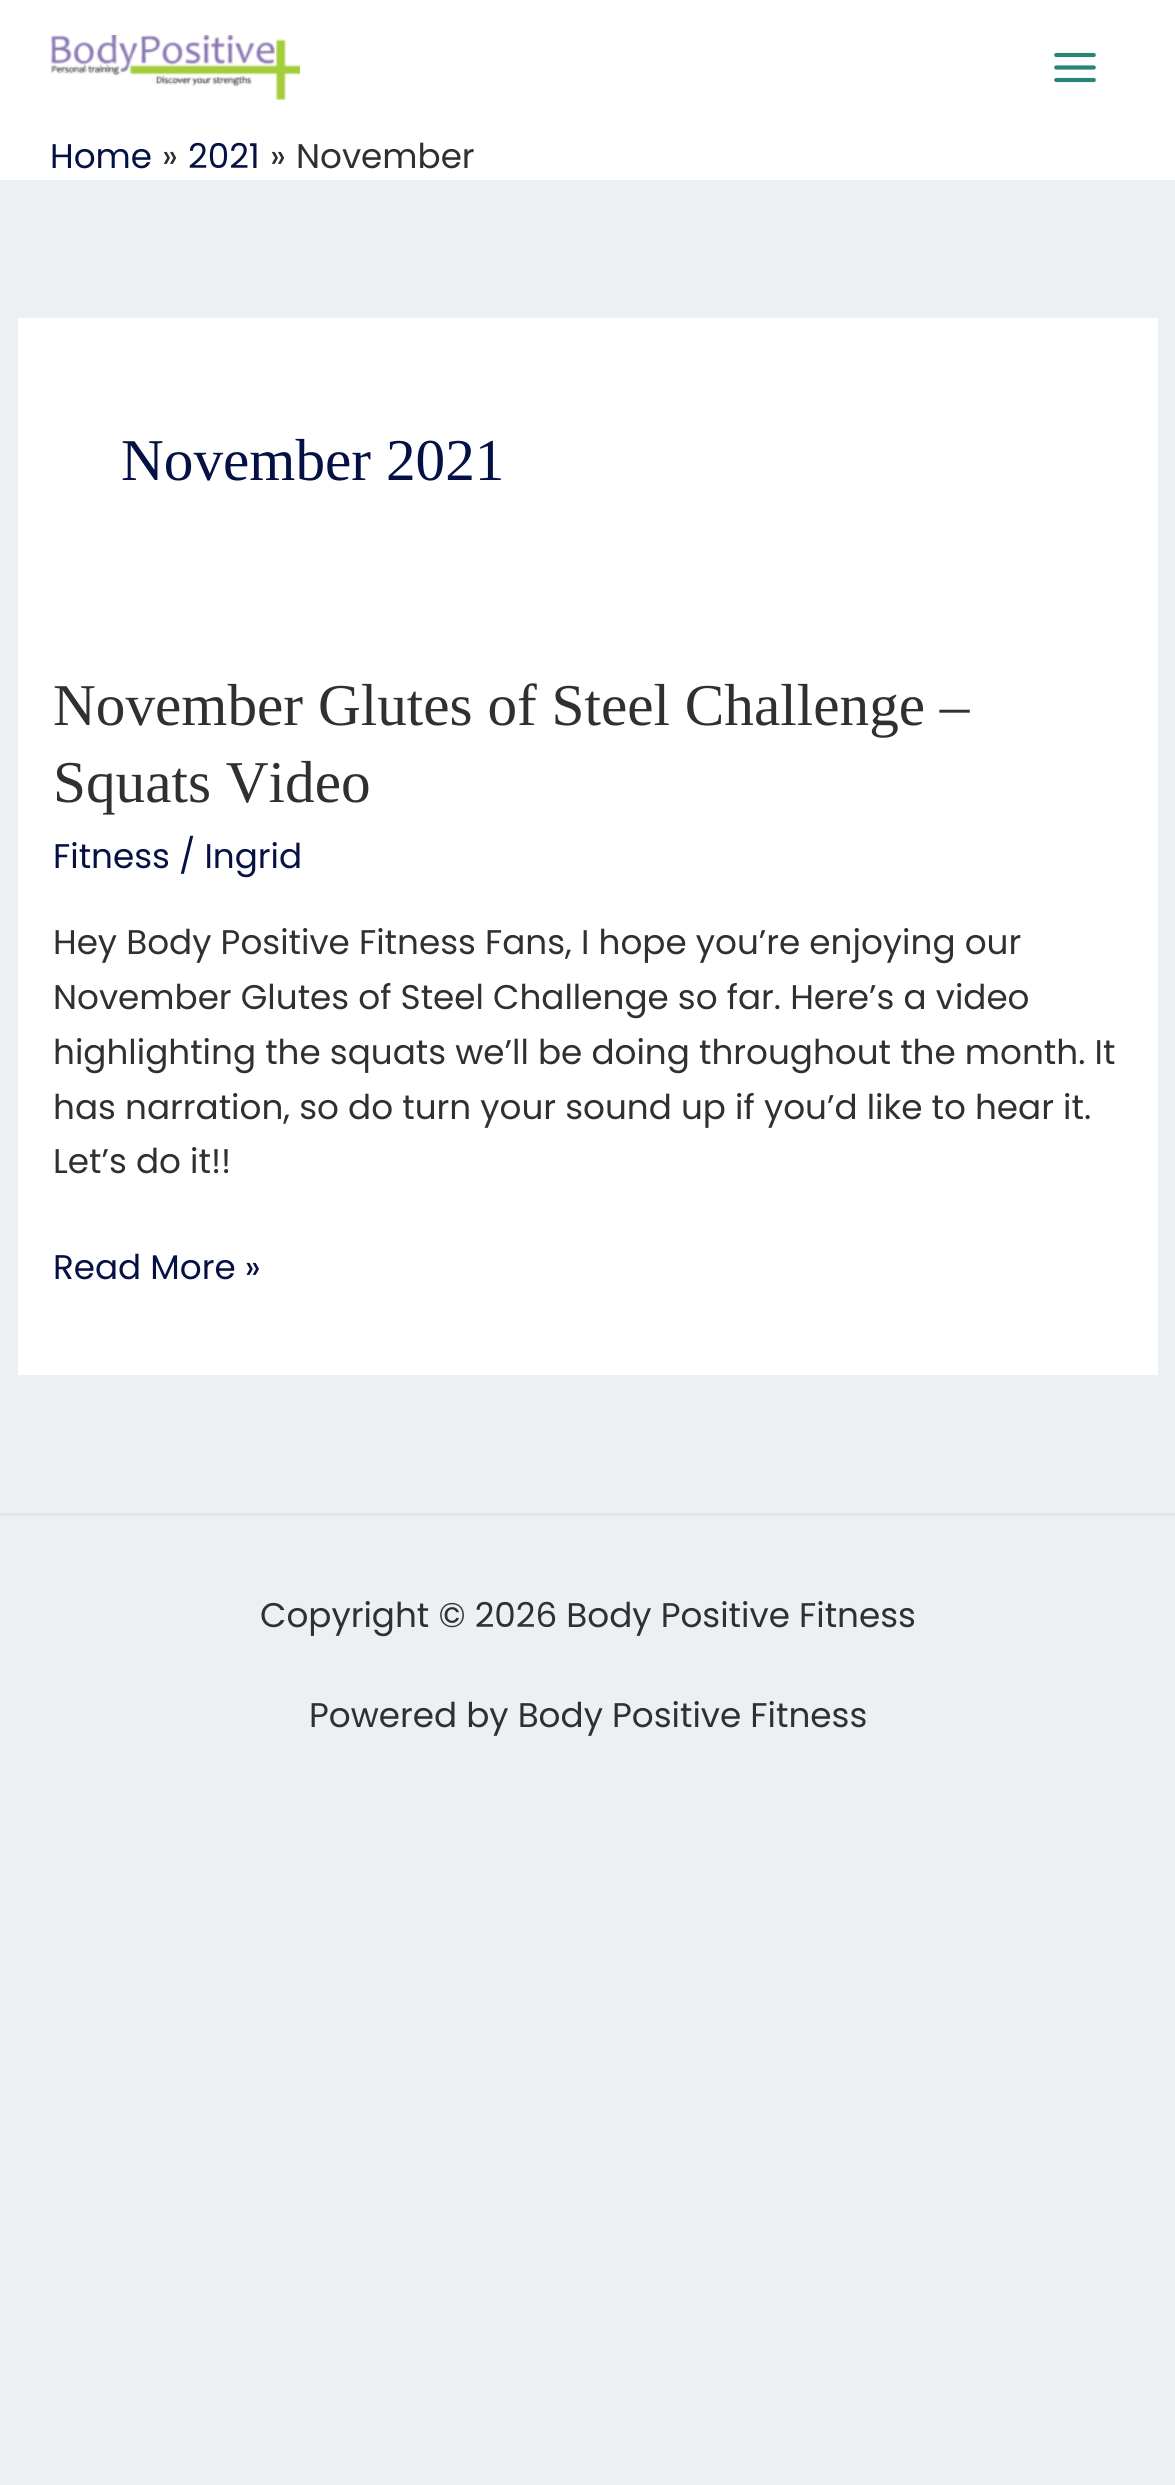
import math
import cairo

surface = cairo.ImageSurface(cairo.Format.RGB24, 1175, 2485)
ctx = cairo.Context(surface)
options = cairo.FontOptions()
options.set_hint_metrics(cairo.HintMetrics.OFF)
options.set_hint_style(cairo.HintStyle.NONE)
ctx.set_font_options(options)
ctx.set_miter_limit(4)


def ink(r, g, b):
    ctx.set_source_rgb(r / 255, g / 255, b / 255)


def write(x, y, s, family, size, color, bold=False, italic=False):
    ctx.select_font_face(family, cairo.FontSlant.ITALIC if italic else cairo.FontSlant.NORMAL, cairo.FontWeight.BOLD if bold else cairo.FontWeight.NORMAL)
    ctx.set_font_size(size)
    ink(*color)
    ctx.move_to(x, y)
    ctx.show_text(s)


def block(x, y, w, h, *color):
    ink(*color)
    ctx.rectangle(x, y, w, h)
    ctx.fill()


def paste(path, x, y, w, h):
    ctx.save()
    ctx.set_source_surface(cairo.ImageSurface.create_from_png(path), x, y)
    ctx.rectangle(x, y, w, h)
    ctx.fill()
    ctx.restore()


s1 = dict(family="Poppins", size=34.2, color=(5, 17, 69))
s2 = dict(family="Poppins", size=34.2, color=(48, 48, 48))
s3 = dict(family="Liberation Serif", size=59.25, color=(5, 17, 69))
s4 = dict(family="Liberation Serif", size=59.25, color=(48, 48, 48))

ink(236, 240, 242)
ctx.paint()
block(0, 0, 1175, 180, 255, 255, 255)
paste("pic1.png", 50, 35, 250, 65)
paste("pic2.png", 1054, 52, 42, 31)
write(50, 168, "Home", **s1)
write(162, 168, "»", **s2)
write(188, 168, "2021", **s1)
write(270, 168, "»", **s2)
write(296, 168, "November", **s2)
block(18, 318, 1140, 1057, 255, 255, 255)
write(121, 480, "November 2021", **s3)
write(53, 725, "November Glutes of Steel Challenge –", **s4)
write(53, 802, "Squats Video", **s4)
write(53, 868, "Fitness / Ingrid", **s1)
write(53, 954, "Hey Body Positive Fitness Fans, I hope you’re enjoying our", **s2)
write(53, 1009, "November Glutes of Steel Challenge so far. Here’s a video", **s2)
write(53, 1064, "highlighting the squats we’ll be doing throughout the month. It", **s2)
write(53, 1119, "has narration, so do turn your sound up if you’d like to hear it.", **s2)
write(53, 1173, "Let’s do it!!", **s2)
write(53, 1279, "Read More »", **s1)
block(0, 1513, 1175, 3, 229, 229, 229)
write(260, 1627, "Copyright © 2026 Body Positive Fitness", **s2)
write(309, 1727, "Powered by Body Positive Fitness", **s2)
surface.write_to_png("screenshot.png")
